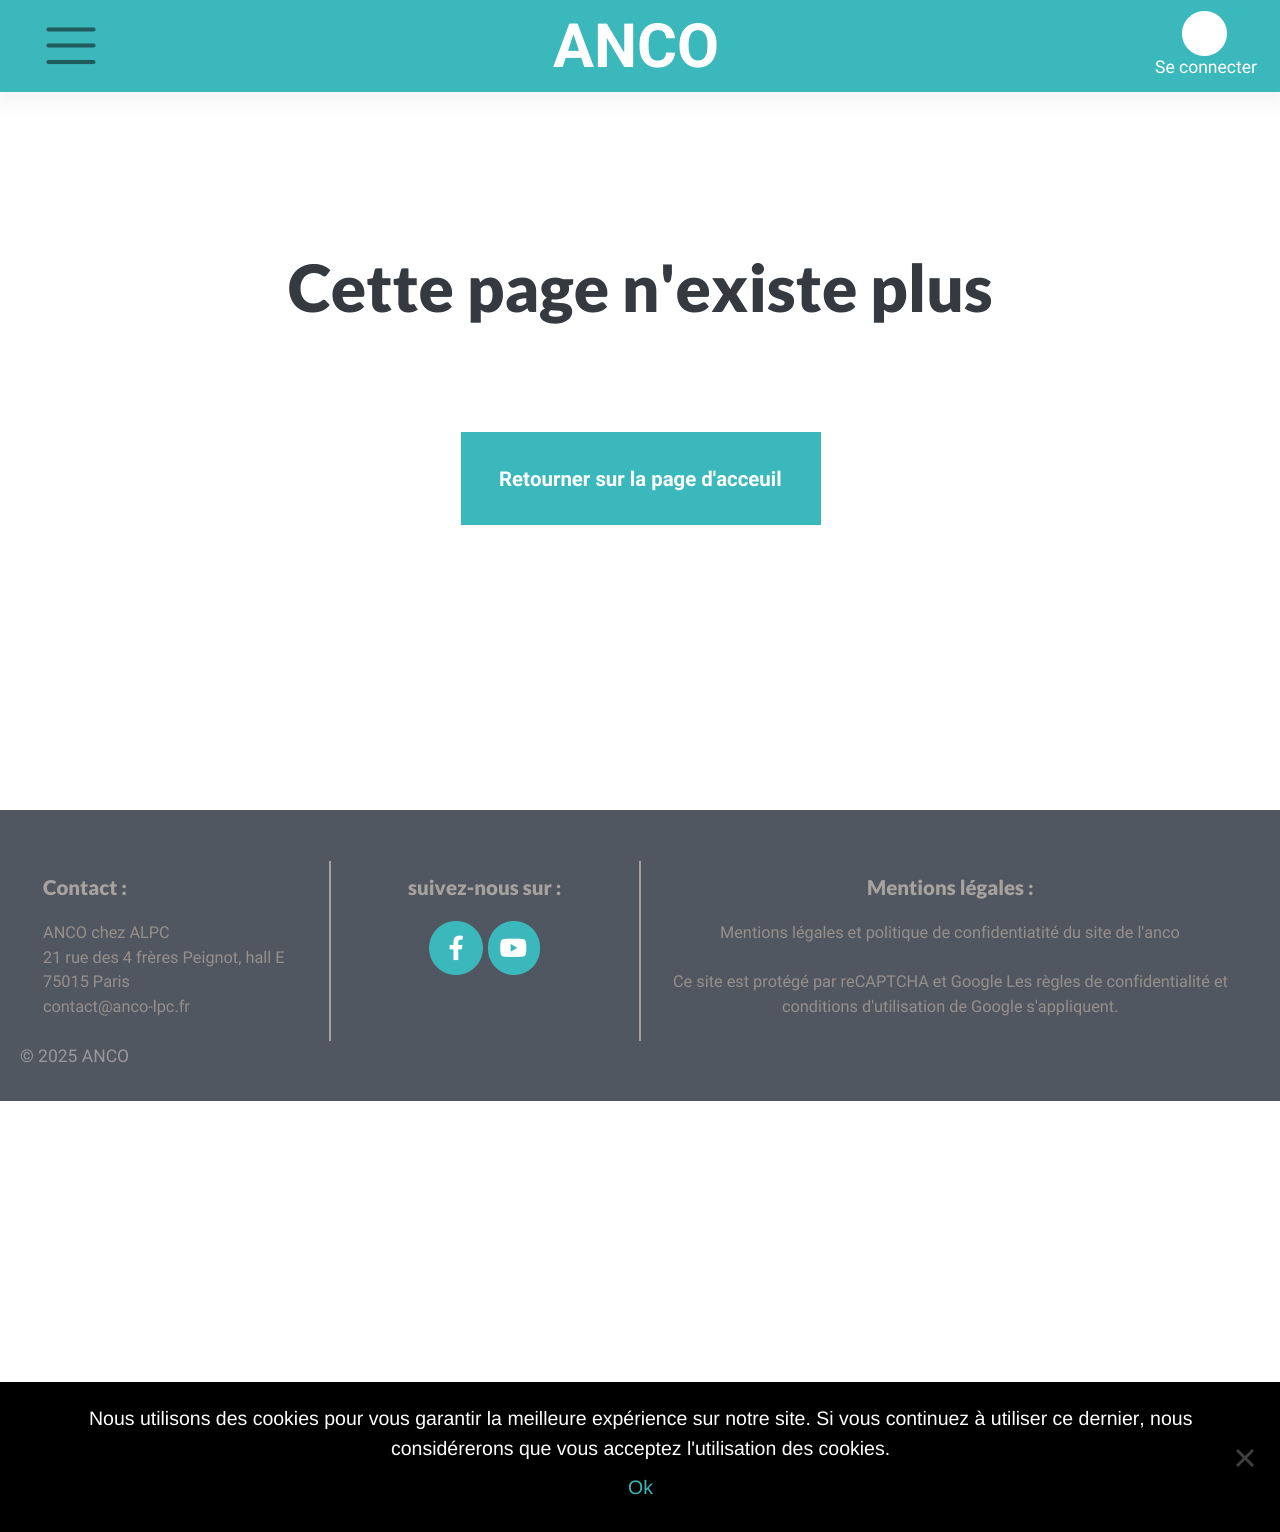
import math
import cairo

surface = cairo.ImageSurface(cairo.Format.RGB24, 1280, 1532)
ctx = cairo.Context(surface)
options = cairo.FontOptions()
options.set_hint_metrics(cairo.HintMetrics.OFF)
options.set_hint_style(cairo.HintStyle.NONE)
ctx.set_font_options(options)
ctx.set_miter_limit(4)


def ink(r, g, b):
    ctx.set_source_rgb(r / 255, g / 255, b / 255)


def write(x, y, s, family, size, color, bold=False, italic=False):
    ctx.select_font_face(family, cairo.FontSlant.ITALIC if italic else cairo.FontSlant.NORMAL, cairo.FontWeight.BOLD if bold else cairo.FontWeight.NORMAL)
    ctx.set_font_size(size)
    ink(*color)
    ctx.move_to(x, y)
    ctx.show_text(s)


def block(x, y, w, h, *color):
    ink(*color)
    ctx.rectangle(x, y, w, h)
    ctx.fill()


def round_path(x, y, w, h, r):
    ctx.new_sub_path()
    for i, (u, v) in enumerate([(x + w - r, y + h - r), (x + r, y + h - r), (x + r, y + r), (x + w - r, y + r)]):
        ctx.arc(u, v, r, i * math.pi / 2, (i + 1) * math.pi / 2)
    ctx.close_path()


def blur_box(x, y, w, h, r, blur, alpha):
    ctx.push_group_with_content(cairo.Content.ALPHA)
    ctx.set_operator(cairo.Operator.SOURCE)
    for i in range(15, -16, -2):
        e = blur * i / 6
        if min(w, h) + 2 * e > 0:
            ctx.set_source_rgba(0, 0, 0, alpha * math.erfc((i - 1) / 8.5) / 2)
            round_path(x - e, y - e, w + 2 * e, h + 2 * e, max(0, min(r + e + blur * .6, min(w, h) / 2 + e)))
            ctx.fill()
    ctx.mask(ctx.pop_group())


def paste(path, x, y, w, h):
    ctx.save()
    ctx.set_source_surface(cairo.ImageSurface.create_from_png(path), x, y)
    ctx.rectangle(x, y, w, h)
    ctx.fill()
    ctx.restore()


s1 = dict(family="Roboto", size=61, color=(255, 255, 255), bold=True)
s2 = dict(family="Roboto", size=17.5, color=(255, 255, 255))
s3 = dict(family="Lato Black", size=65.25, color=(52, 58, 64))
s4 = dict(family="Roboto", size=20.4, color=(255, 255, 255), bold=True)
s5 = dict(family="Lato Black", size=20.4, color=(167, 162, 158))
s6 = dict(family="Roboto", size=16.3, color=(149, 142, 138))
s7 = dict(family="Roboto", size=17.5, color=(153, 151, 156))
s8 = dict(family="Liberation Sans", size=19.5, color=(255, 255, 255))
s9 = dict(family="Liberation Sans", size=19.5, color=(59, 184, 188))

ink(255, 255, 255)
ctx.paint()
ink(0, 0, 0)
blur_box(0, 11, 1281, 91, 0, 10, 0.05)
block(0, 0, 1280, 92, 59, 184, 188)
ctx.new_path()
ctx.move_to(48.5, 29.5)
ctx.line_to(93.5, 29.5)
ctx.move_to(48.5, 45.5)
ctx.line_to(93.5, 45.5)
ctx.move_to(48.5, 62)
ctx.line_to(93.5, 62)
ink(30, 92, 94)
ctx.set_line_width(4.1)
ctx.set_line_cap(cairo.LineCap.ROUND)
ctx.stroke()
write(553, 67, "ANCO", **s1)
ctx.new_path()
ctx.arc(1204.5, 33.5, 21, 0, 2 * math.pi)
ctx.fill_preserve()
ctx.set_line_width(3)
ctx.set_line_cap(cairo.LineCap.BUTT)
ctx.stroke()
write(1155, 73, "Se connecter", **s2)
write(288, 312, "Cette page n'existe plus", **s3)
block(461, 432, 360, 93, 59, 184, 188)
write(499, 486, "Retourner sur la page d'acceuil", **s4)
block(0, 810, 1280, 291, 81, 87, 96)
block(329, 861, 2, 180, 167, 162, 158)
write(43, 895, "Contact :", **s5)
write(43, 938, "ANCO chez ALPC", **s6)
write(43, 963, "21 rue des 4 frères Peignot, hall E", **s6)
write(43, 987, "75015 Paris", **s6)
write(43, 1012, "contact@anco-lpc.fr", **s6)
block(639, 861, 2, 180, 167, 162, 158)
write(408, 895, "suivez-nous sur :", **s5)
ink(59, 184, 188)
ctx.new_path()
ctx.arc(456, 948, 25.5, 0, 2 * math.pi)
ctx.fill_preserve()
ctx.stroke()
paste("pic1.png", 449, 935, 14, 26)
round_path(489.5, 922.5, 49, 51, 24.5)
ctx.fill_preserve()
ctx.stroke()
paste("pic2.png", 500, 938, 27, 19)
write(867, 895, "Mentions légales :", **s5)
write(720, 938, "Mentions légales et politique de confidentiatité du site de l'anco", **s6)
write(673, 987, "Ce site est protégé par reCAPTCHA et Google Les règles de confidentialité et", **s6)
write(782, 1012, "conditions d'utilisation de Google s'appliquent.", **s6)
write(20, 1062, "© 2025 ANCO", **s7)
block(0, 1382, 1280, 150, 0, 0, 0)
write(89, 1425, "Nous utilisons des cookies pour vous garantir la meilleure expérience sur notre site. Si vous continuez à utiliser ce dernier, nous", **s8)
write(391, 1455, "considérerons que vous acceptez l'utilisation des cookies.", **s8)
ink(64, 64, 64)
ctx.new_path()
ctx.move_to(1252, 1449)
ctx.line_to(1254, 1451)
ctx.line_to(1238, 1467)
ctx.line_to(1236, 1465)
ctx.close_path()
ctx.fill()
ctx.new_path()
ctx.move_to(1236, 1451)
ctx.line_to(1238, 1449)
ctx.line_to(1254, 1465)
ctx.line_to(1252, 1467)
ctx.close_path()
ctx.fill()
write(628, 1494, "Ok", **s9)
surface.write_to_png("screenshot.png")
